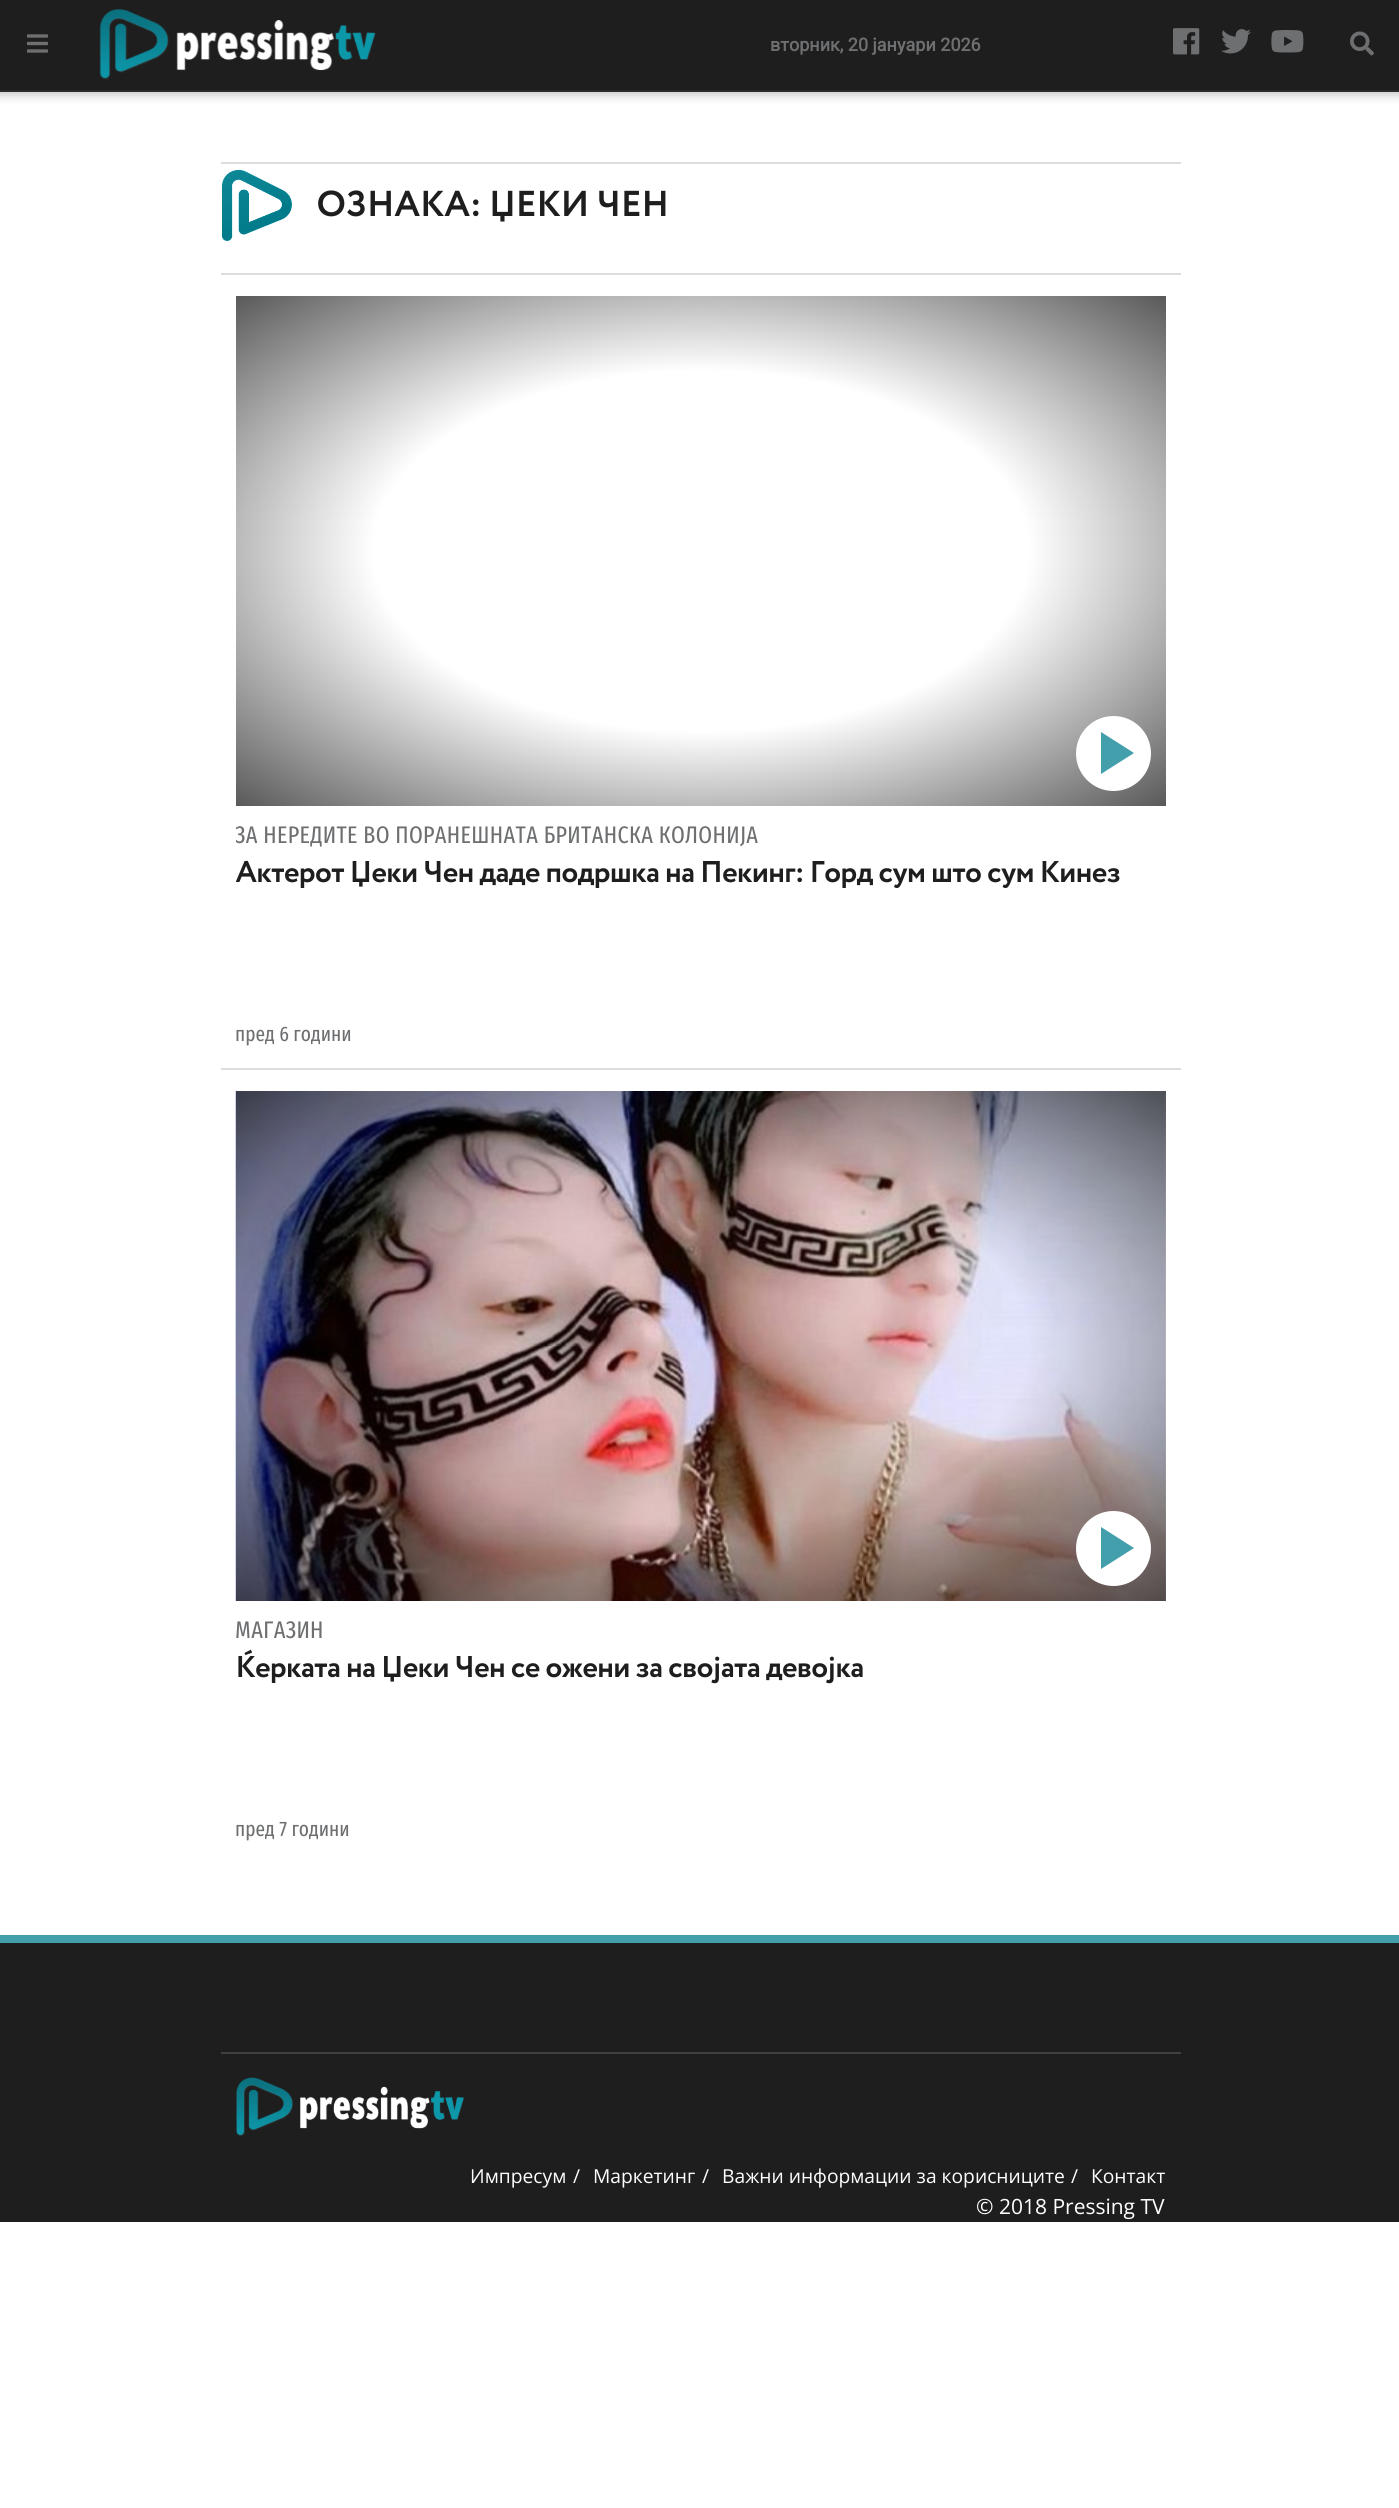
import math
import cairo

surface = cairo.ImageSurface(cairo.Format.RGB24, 1399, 2508)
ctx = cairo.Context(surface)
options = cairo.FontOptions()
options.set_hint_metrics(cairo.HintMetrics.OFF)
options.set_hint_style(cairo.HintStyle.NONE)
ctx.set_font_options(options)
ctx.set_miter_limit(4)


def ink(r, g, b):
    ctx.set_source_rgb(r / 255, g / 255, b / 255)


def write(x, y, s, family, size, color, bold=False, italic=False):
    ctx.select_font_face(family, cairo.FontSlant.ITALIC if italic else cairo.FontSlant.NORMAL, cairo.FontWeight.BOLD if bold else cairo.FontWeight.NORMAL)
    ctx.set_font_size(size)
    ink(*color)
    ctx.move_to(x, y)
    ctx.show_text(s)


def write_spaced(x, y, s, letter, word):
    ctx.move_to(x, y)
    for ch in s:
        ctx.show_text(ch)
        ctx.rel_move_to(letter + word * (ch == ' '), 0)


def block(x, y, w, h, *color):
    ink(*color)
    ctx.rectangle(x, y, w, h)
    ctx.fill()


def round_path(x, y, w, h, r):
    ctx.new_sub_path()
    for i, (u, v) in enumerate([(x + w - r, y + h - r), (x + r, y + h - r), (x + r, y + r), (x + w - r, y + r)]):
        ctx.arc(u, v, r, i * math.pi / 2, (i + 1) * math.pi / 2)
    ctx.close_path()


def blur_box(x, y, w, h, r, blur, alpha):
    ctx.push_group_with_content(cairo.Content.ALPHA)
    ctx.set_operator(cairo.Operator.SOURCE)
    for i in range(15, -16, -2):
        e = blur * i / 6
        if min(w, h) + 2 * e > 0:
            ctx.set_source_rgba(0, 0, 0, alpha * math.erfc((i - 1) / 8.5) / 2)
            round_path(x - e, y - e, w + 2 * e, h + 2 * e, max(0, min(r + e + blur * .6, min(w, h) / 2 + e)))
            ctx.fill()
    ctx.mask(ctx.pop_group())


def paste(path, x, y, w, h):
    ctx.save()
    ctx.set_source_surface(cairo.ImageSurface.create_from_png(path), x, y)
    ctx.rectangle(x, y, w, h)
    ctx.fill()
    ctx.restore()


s1 = dict(family="Roboto", size=18, color=(109, 111, 113), bold=True)
s2 = dict(family="Fira Sans Extra Condensed", size=21, color=(109, 111, 113))
s3 = dict(family="Open Sans", size=19.25, color=(255, 255, 255))
s4 = dict(family="Open Sans", size=21, color=(255, 255, 255))

ink(255, 255, 255)
ctx.paint()
ink(0, 0, 0)
blur_box(-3, -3, 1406, 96, 0, 6, 0.3)
block(0, 0, 1399, 90, 30, 30, 30)
paste("pic1.png", 27, 34, 21, 19)
paste("pic2.png", 99, 9, 277, 71)
write(770, 51, "вторник, 20 јануари 2026", **s1)
paste("pic3.png", 1173, 28, 27, 27)
paste("pic4.png", 1221, 29, 30, 25)
paste("pic5.png", 1271, 30, 33, 23)
paste("pic6.png", 1350, 31, 24, 25)
block(0, 90, 1399, 2, 42, 42, 42)
paste("pic7.png", 221, 169, 71, 72)
block(221, 162, 960, 2, 219, 221, 225)
paste("pic8.png", 318, 190, 348, 32)
block(221, 273, 960, 2, 219, 221, 225)
gradient = cairo.RadialGradient(0, 0, 0, 0, 0, 1)
gradient.set_matrix(cairo.Matrix(1 / 658, 0, 0, 1 / 361, -1 * 701 / 658, -1 * 551 / 361))
gradient.add_color_stop_rgba(0, 1, 1, 1, 1)
gradient.add_color_stop_rgba(0.5, 1, 1, 1, 1)
gradient.add_color_stop_rgba(1, 0.353, 0.353, 0.353, 1)
ctx.set_source(gradient)
ctx.rectangle(236, 296, 930, 510)
ctx.fill()
ink(255, 255, 255)
ctx.arc(1113.5, 753.5, 37.5, 0, 2 * math.pi)
ctx.fill()
ink(67, 159, 172)
ctx.new_path()
ctx.move_to(1101, 732)
ctx.line_to(1101, 774)
ctx.line_to(1134, 753)
ctx.close_path()
ctx.fill()
ctx.save()
ctx.rectangle(236, 818, 930, 36)
ctx.clip()
ctx.select_font_face("Fira Sans Extra Condensed")
ctx.set_font_size(24)
ink(109, 111, 113)
write_spaced(235, 843, "ЗА НЕРЕДИТЕ ВО ПОРАНЕШНАТА БРИТАНСКА КОЛОНИЈА", 0.35, 0)
ctx.restore()
paste("pic9.png", 236, 860, 884, 28)
write(235, 1041, "пред 6 години", **s2)
block(221, 1068, 960, 2, 219, 221, 225)
paste("pic10.png", 235, 1091, 931, 510)
gradient = cairo.RadialGradient(0, 0, 0, 0, 0, 1)
gradient.set_matrix(cairo.Matrix(1 / 658, 0, 0, 1 / 361, -1 * 701 / 658, -1 * 1346 / 361))
gradient.add_color_stop_rgba(0, 0, 0, 0, 0)
gradient.add_color_stop_rgba(0.5, 0, 0, 0, 0)
gradient.add_color_stop_rgba(1, 0, 0, 0, 0.65)
ctx.set_source(gradient)
ctx.rectangle(236, 1091, 930, 510)
ctx.fill()
ink(255, 255, 255)
ctx.arc(1113.5, 1548.5, 37.5, 0, 2 * math.pi)
ctx.fill()
ink(67, 159, 172)
ctx.new_path()
ctx.move_to(1101, 1527)
ctx.line_to(1101, 1569)
ctx.line_to(1134, 1548)
ctx.close_path()
ctx.fill()
ctx.set_font_size(24)
ink(109, 111, 113)
write_spaced(235, 1638, "МАГАЗИН", 0.35, 0)
paste("pic11.png", 238, 1649, 625, 35)
write(235, 1836, "пред 7 години", **s2)
block(0, 1935, 1399, 8, 67, 159, 172)
block(0, 1943, 1399, 279, 30, 30, 30)
block(221, 2052, 960, 2, 64, 64, 64)
paste("pic12.png", 236, 2077, 229, 59)
write(470, 2183, "Импресум", **s3)
write(573, 2183, "/", **s3)
write(593, 2183, "Маркетинг", **s3)
write(702, 2183, "/", **s3)
write(722, 2183, "Важни информации за корисниците", **s3)
write(1071, 2183, "/", **s3)
write(1091, 2183, "Контакт", **s3)
write(976, 2214, "© 2018 Pressing TV", **s4)
surface.write_to_png("screenshot.png")
